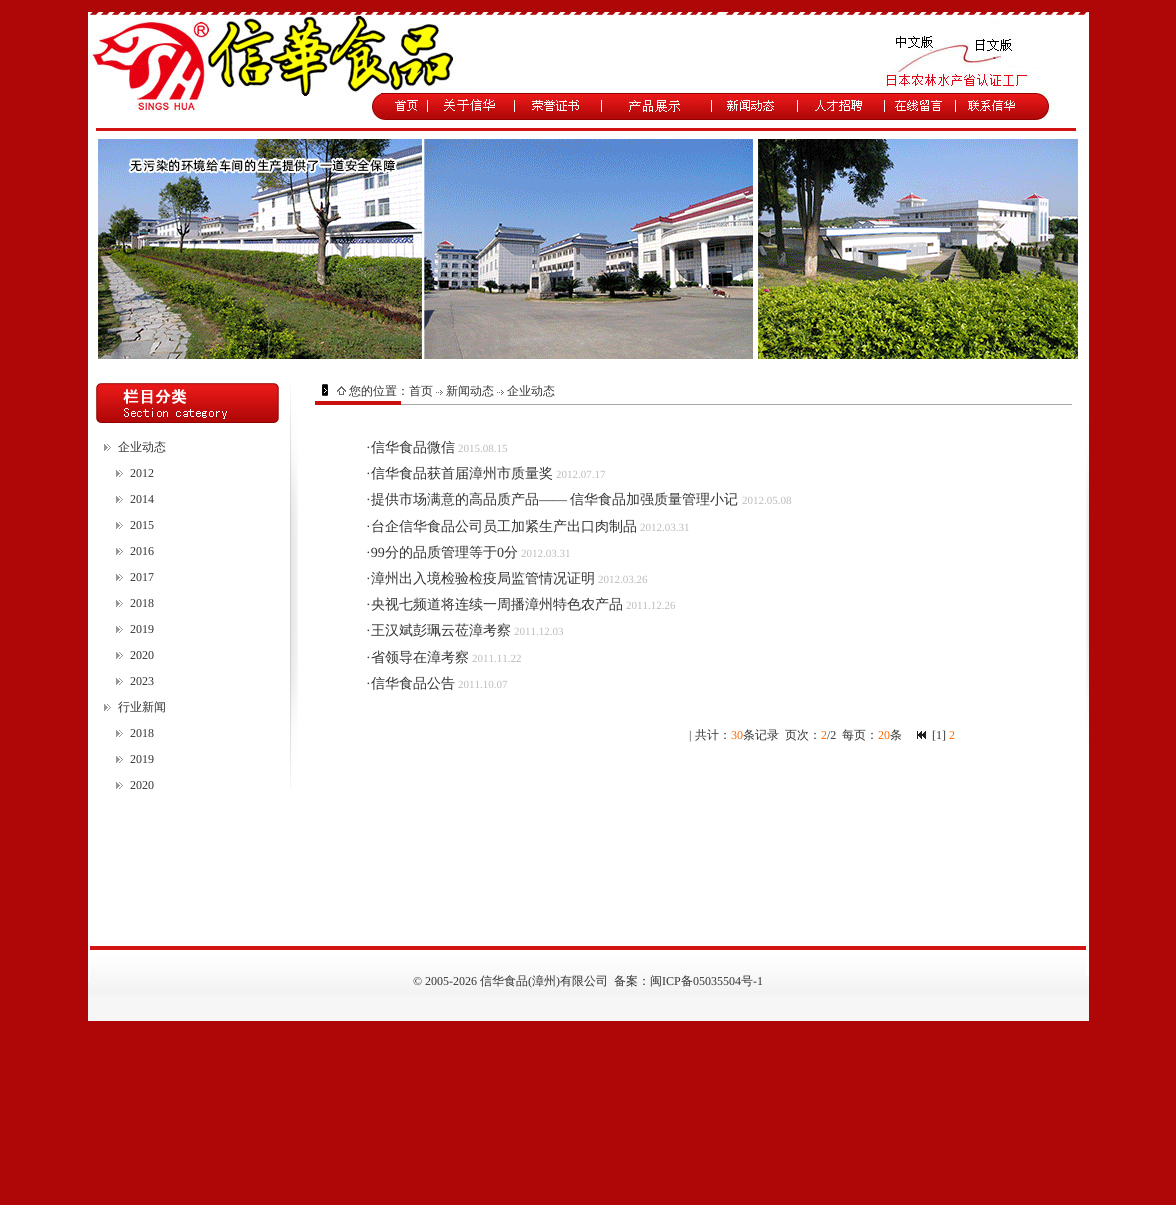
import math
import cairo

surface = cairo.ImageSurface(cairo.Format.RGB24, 1176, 1205)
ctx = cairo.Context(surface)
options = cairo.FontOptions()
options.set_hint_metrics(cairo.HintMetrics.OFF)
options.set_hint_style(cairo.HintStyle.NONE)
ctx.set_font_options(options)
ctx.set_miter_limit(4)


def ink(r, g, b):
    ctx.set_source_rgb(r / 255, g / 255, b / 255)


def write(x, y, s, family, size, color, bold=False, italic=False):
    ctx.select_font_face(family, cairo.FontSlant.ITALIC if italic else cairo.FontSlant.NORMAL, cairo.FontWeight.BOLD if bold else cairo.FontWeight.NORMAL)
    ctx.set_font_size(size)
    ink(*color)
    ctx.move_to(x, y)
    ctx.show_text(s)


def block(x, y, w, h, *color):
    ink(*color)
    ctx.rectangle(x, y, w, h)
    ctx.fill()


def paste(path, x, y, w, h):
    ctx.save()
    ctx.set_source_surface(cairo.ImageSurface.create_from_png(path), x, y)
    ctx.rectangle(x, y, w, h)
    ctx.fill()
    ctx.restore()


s1 = dict(family="WenQuanYi Zen Hei Medium", size=12, color=(51, 51, 51))
s2 = dict(family="Liberation Serif", size=12, color=(51, 51, 51))
s3 = dict(family="Liberation Serif", size=14, color=(51, 51, 51))
s4 = dict(family="WenQuanYi Zen Hei Medium", size=14, color=(51, 51, 51))
s5 = dict(family="Liberation Serif", size=11, color=(187, 187, 187))
s6 = dict(family="Liberation Serif", size=12, color=(255, 102, 0))

ink(175, 7, 7)
ctx.paint()
paste("pic1.png", 88, 8, 1001, 125)
block(88, 133, 1001, 809, 255, 255, 255)
paste("pic2.png", 98, 139, 980, 220)
paste("pic3.png", 96, 383, 993, 406)
paste("pic4.png", 104, 444, 7, 7)
write(118, 451, "企业动态", **s1)
paste("pic4.png", 116, 470, 7, 7)
write(130, 477, "2012", **s2)
paste("pic4.png", 116, 496, 7, 7)
write(130, 503, "2014", **s2)
paste("pic4.png", 116, 522, 7, 7)
write(130, 529, "2015", **s2)
paste("pic4.png", 116, 548, 7, 7)
write(130, 555, "2016", **s2)
paste("pic4.png", 116, 574, 7, 7)
write(130, 581, "2017", **s2)
paste("pic4.png", 116, 600, 7, 7)
write(130, 607, "2018", **s2)
paste("pic4.png", 116, 626, 7, 7)
write(130, 633, "2019", **s2)
paste("pic4.png", 116, 652, 7, 7)
write(130, 659, "2020", **s2)
paste("pic4.png", 116, 678, 7, 7)
write(130, 685, "2023", **s2)
paste("pic4.png", 104, 704, 7, 7)
write(118, 711, "行业新闻", **s1)
paste("pic4.png", 116, 730, 7, 7)
write(130, 737, "2018", **s2)
paste("pic4.png", 116, 756, 7, 7)
write(130, 763, "2019", **s2)
paste("pic4.png", 116, 782, 7, 7)
write(130, 789, "2020", **s2)
paste("pic5.png", 337, 386, 9, 9)
write(349, 395, "您的位置：首页", **s1)
paste("pic6.png", 436, 390, 7, 5)
write(446, 395, "新闻动态", **s1)
paste("pic6.png", 497, 390, 7, 5)
write(507, 395, "企业动态", **s1)
write(366, 452, "·", **s3)
write(371, 452, "信华食品微信", **s4)
write(458, 452, "2015.08.15", **s5)
write(366, 478, "·", **s3)
write(371, 478, "信华食品获首届漳州市质量奖", **s4)
write(556, 478, "2012.07.17", **s5)
write(366, 504, "·", **s3)
write(371, 504, "提供市场满意的高品质产品", **s4)
write(539, 504, "——", **s3)
write(570, 504, "信华食品加强质量管理小记", **s4)
write(742, 504, "2012.05.08", **s5)
write(366, 531, "·", **s3)
write(371, 531, "台企信华食品公司员工加紧生产出口肉制品", **s4)
write(640, 531, "2012.03.31", **s5)
write(366, 557, "·99", **s3)
write(385, 557, "分的品质管理等于", **s4)
write(497, 557, "0", **s3)
write(504, 557, "分", **s4)
write(521, 557, "2012.03.31", **s5)
write(366, 583, "·", **s3)
write(371, 583, "漳州出入境检验检疫局监管情况证明", **s4)
write(598, 583, "2012.03.26", **s5)
write(366, 609, "·", **s3)
write(371, 609, "央视七频道将连续一周播漳州特色农产品", **s4)
write(626, 609, "2011.12.26", **s5)
write(366, 635, "·", **s3)
write(371, 635, "王汉斌彭珮云莅漳考察", **s4)
write(514, 635, "2011.12.03", **s5)
write(366, 662, "·", **s3)
write(371, 662, "省领导在漳考察", **s4)
write(472, 662, "2011.11.22", **s5)
write(366, 688, "·", **s3)
write(371, 688, "信华食品公告", **s4)
write(458, 688, "2011.10.07", **s5)
write(689, 739, "|", **s2)
write(695, 739, "共计：", **s1)
write(731, 739, "30", **s6)
write(743, 739, "条记录", **s1)
write(785, 739, "页次：", **s1)
write(821, 739, "2", **s6)
write(827, 739, "/2", **s2)
write(842, 739, "每页：", **s1)
write(878, 739, "20", **s6)
write(890, 739, "条", **s1)
paste("pic7.png", 917, 731, 9, 8)
write(932, 739, "[1]", **s2)
write(949, 739, "2", **s6)
paste("pic8.png", 88, 942, 1001, 79)
write(413, 985, "© 2005-2026", **s2)
write(480, 985, "信华食品", **s1)
write(528, 985, "(", **s2)
write(532, 985, "漳州", **s1)
write(556, 985, ")", **s2)
write(560, 985, "有限公司", **s1)
write(614, 985, "备案：闽", **s1)
write(662, 985, "ICP", **s2)
write(681, 985, "备", **s1)
write(693, 985, "05035504", **s2)
write(741, 985, "号", **s1)
write(753, 985, "-1", **s2)
surface.write_to_png("screenshot.png")
